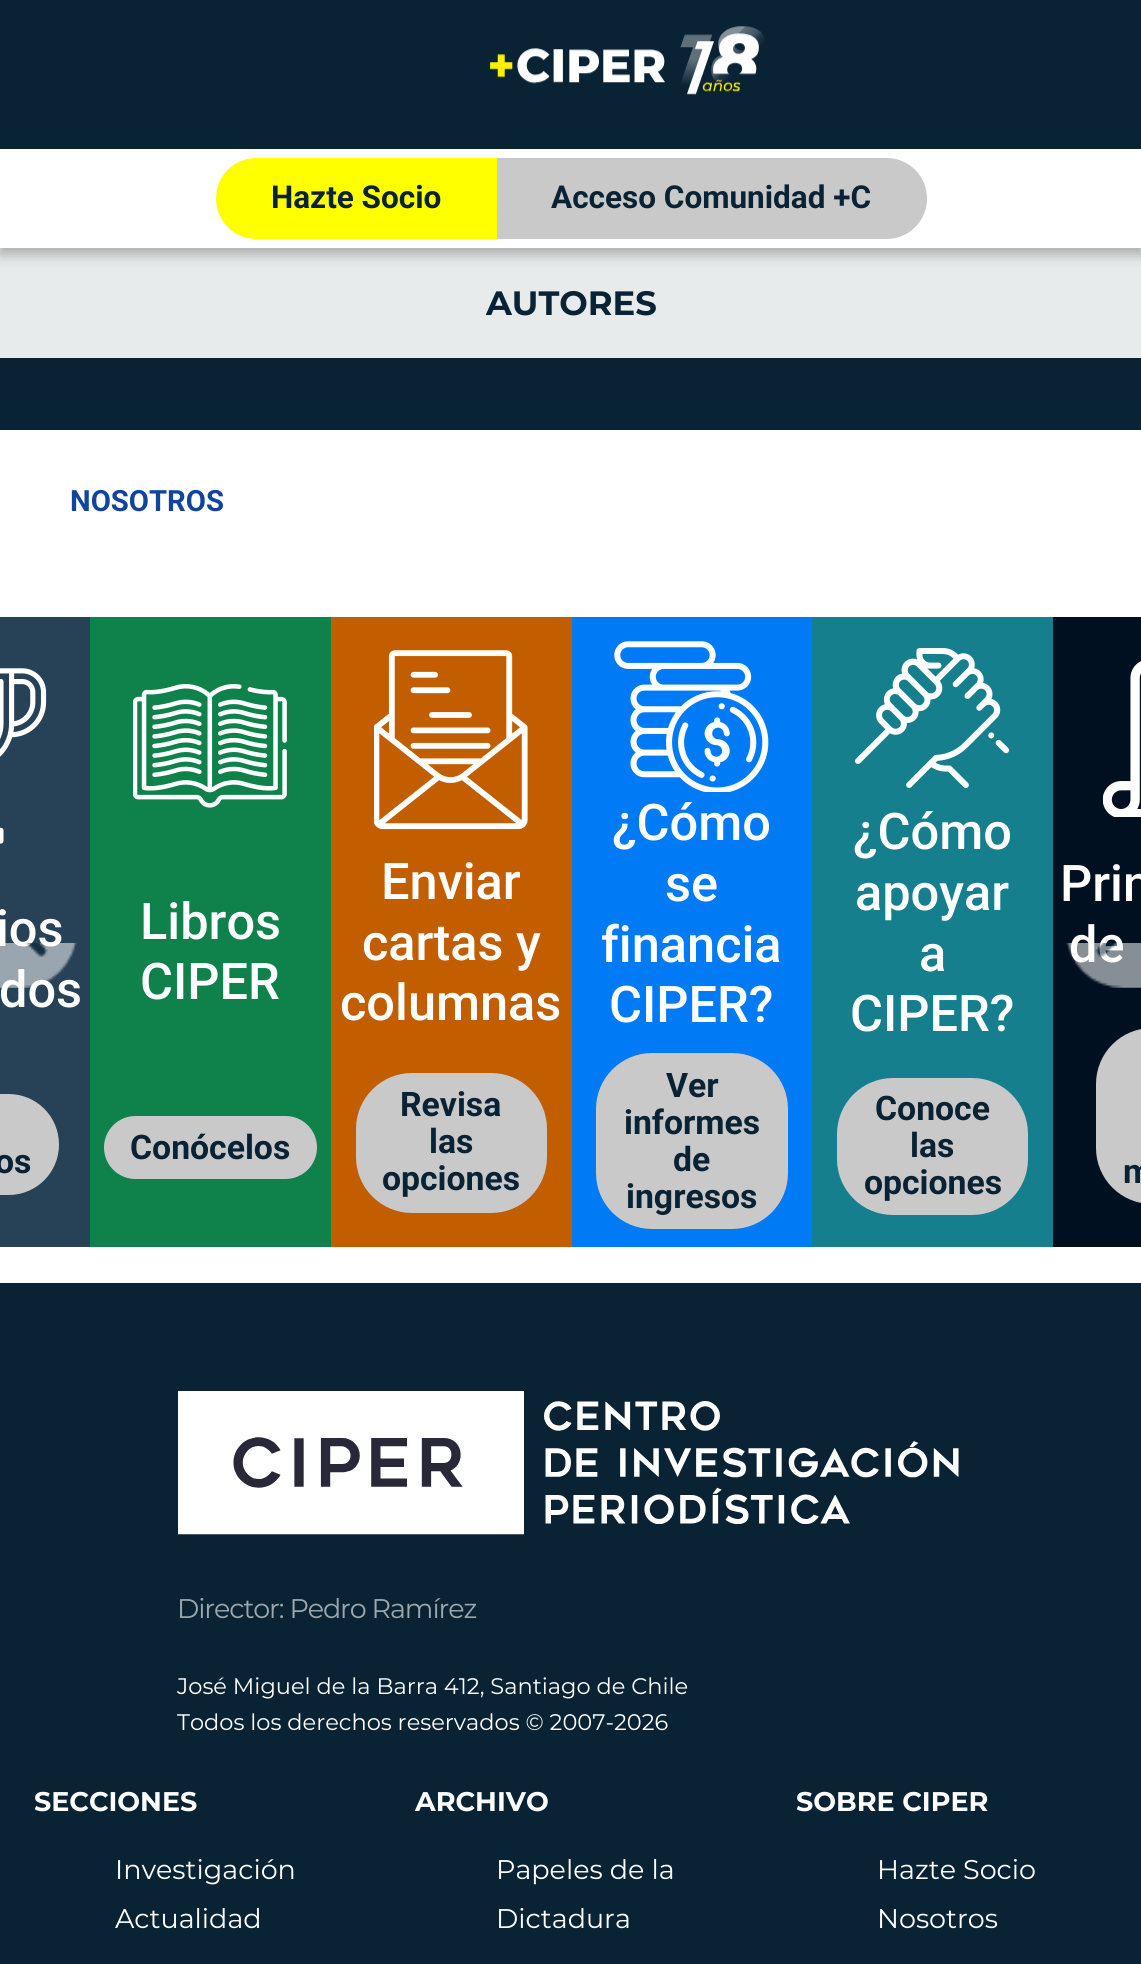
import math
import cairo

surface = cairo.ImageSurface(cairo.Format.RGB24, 1141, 1964)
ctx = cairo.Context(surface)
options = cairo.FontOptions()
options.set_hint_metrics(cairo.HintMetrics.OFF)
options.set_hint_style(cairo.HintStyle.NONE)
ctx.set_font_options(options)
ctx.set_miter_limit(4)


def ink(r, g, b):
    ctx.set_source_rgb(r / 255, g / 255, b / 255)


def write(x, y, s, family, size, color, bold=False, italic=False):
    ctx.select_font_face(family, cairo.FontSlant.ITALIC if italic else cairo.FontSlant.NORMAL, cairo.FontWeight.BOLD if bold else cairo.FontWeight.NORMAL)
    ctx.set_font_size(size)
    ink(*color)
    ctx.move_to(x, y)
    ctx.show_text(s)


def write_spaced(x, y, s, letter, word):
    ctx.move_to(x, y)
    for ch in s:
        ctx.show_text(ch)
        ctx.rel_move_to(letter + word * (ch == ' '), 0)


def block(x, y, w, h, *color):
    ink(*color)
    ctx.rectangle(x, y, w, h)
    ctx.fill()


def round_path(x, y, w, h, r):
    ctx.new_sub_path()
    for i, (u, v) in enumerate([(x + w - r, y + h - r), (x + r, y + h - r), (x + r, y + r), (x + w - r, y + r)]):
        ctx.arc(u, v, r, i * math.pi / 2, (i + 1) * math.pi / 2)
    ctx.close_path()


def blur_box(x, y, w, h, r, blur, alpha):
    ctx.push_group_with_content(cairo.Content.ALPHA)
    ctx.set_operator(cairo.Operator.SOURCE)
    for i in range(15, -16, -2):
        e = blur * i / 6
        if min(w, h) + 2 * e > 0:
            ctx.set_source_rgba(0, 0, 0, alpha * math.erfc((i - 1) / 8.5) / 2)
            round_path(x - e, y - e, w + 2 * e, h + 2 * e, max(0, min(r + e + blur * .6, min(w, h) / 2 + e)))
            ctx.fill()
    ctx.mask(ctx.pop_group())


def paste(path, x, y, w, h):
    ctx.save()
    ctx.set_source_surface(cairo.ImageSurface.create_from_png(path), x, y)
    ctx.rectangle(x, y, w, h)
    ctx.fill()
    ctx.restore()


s1 = dict(family="Roboto", size=31.5, color=(9, 35, 52), bold=True)
s2 = dict(family="Montserrat", size=33.75, color=(9, 35, 52), bold=True)
s3 = dict(family="Roboto", size=29.25, color=(17, 68, 158), bold=True)
s4 = dict(family="Roboto Medium", size=50.5, color=(255, 255, 255))
s5 = dict(family="Roboto", size=33.75, color=(9, 35, 52), bold=True)
s6 = dict(family="Montserrat", size=22.5, color=(255, 255, 255))
s7 = dict(family="Montserrat", size=27, color=(255, 255, 255), bold=True)
s8 = dict(family="Montserrat", size=27, color=(255, 255, 255))

ink(255, 255, 255)
ctx.paint()
block(0, 248, 1141, 110, 232, 235, 236)
ink(0, 0, 0)
blur_box(0, 7, 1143, 247, 0, 7, 0.29)
block(0, 149, 1141, 99, 255, 255, 255)
block(0, 0, 1141, 149, 9, 35, 52)
paste("pic1.png", 490, 26, 275, 69)
ink(255, 255, 0)
ctx.new_path()
ctx.move_to(256.5, 158)
ctx.line_to(497, 158)
ctx.line_to(497, 239)
ctx.line_to(256.5, 239)
ctx.curve_to(234, 239, 216, 221, 216, 198.5)
ctx.curve_to(216, 176, 234, 158, 256.5, 158)
ctx.close_path()
ctx.fill()
write(271, 208, "Hazte Socio", **s1)
ink(201, 201, 201)
ctx.new_path()
ctx.move_to(497, 158)
ctx.line_to(886.5, 158)
ctx.curve_to(909, 158, 927, 176, 927, 198.5)
ctx.curve_to(927, 221, 909, 239, 886.5, 239)
ctx.line_to(497, 239)
ctx.close_path()
ctx.fill()
write(551, 208, "Acceso Comunidad +C", **s1)
write(486, 315, "AUTORES", **s2)
block(0, 358, 1141, 72, 9, 35, 52)
write(70, 511, "NOSOTROS", **s3)
block(0, 617, 90, 630, 39, 65, 86)
paste("pic2.png", 0, 668, 47, 176)
write(-4, 946, "ios", **s4)
write(-1, 1007, "dos", **s4)
ink(201, 201, 201)
ctx.new_path()
ctx.move_to(0, 1094)
ctx.line_to(8.5, 1094)
ctx.curve_to(36.5, 1094, 59, 1116.5, 59, 1144.5)
ctx.curve_to(59, 1172.5, 36.5, 1195, 8.5, 1195)
ctx.line_to(0, 1195)
ctx.close_path()
ctx.fill()
write(-5, 1173, "os", **s5)
block(90, 617, 241, 630, 15, 129, 74)
paste("pic3.png", 133, 684, 154, 124)
write(140, 939, "Libros", **s4)
write(140, 999, "CIPER", **s4)
ink(201, 201, 201)
round_path(104, 1116, 213, 63, 31.5)
ctx.fill()
write(130, 1159, "Conócelos", **s5)
block(331, 617, 241, 630, 194, 94, 0)
paste("pic4.png", 374, 650, 154, 180)
write(381, 899, "Enviar", **s4)
write(362, 960, "cartas y", **s4)
write(340, 1020, "columnas", **s4)
ink(201, 201, 201)
round_path(356, 1073, 191, 140, 56)
ctx.fill()
write(400, 1116, "Revisa", **s5)
write(429, 1153, "las", **s5)
write(382, 1190, "opciones", **s5)
block(572, 617, 240, 630, 0, 122, 245)
paste("pic5.png", 614, 641, 155, 151)
write(612, 840, "¿Cómo", **s4)
write(665, 901, "se", **s4)
write(601, 962, "financia", **s4)
write(609, 1022, "CIPER?", **s4)
ink(201, 201, 201)
round_path(596, 1053, 192, 176, 56)
ctx.fill()
write(666, 1097, "Ver", **s5)
write(624, 1134, "informes", **s5)
write(673, 1171, "de", **s5)
write(626, 1208, "ingresos", **s5)
block(812, 617, 241, 630, 22, 127, 141)
paste("pic6.png", 855, 648, 155, 140)
write(853, 849, "¿Cómo", **s4)
write(855, 910, "apoyar", **s4)
write(919, 971, "a", **s4)
write(850, 1031, "CIPER?", **s4)
ink(201, 201, 201)
round_path(837, 1078, 191, 137, 56)
ctx.fill()
write(875, 1120, "Conoce", **s5)
write(910, 1157, "las", **s5)
write(864, 1194, "opciones", **s5)
block(1053, 617, 88, 630, 0, 16, 33)
paste("pic7.png", 1103, 661, 38, 156)
write(1060, 901, "Prin", **s4)
write(1069, 962, "de", **s4)
ink(201, 201, 201)
ctx.new_path()
ctx.move_to(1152, 1028)
ctx.line_to(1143, 1028)
ctx.line_to(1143, 1204)
ctx.line_to(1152, 1204)
ctx.curve_to(1121, 1204, 1096, 1179, 1096, 1148)
ctx.line_to(1096, 1084)
ctx.curve_to(1096, 1053, 1121, 1028, 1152, 1028)
ctx.close_path()
ctx.fill()
write(1123, 1183, "m", **s5)
paste("pic8.png", 0, 943, 77, 45)
paste("pic9.png", 1066, 943, 75, 45)
block(0, 1283, 1141, 681, 9, 35, 52)
paste("pic10.png", 178, 1391, 781, 144)
ctx.select_font_face("Montserrat")
ctx.set_font_size(27)
ink(157, 167, 174)
write_spaced(177, 1618, "Director: Pedro Ramírez", -1.1, 0)
write(177, 1694, "José Miguel de la Barra 412, Santiago de Chile", **s6)
write(177, 1730, "Todos los derechos reservados © 2007-2026", **s6)
write(34, 1811, "SECCIONES", **s7)
write(115, 1879, "Investigación", **s8)
write(115, 1928, "Actualidad", **s8)
write(415, 1811, "ARCHIVO", **s7)
write(496, 1879, "Papeles de la", **s8)
write(496, 1928, "Dictadura", **s8)
write(796, 1811, "SOBRE CIPER", **s7)
write(877, 1879, "Hazte Socio", **s8)
write(877, 1928, "Nosotros", **s8)
surface.write_to_png("screenshot.png")
